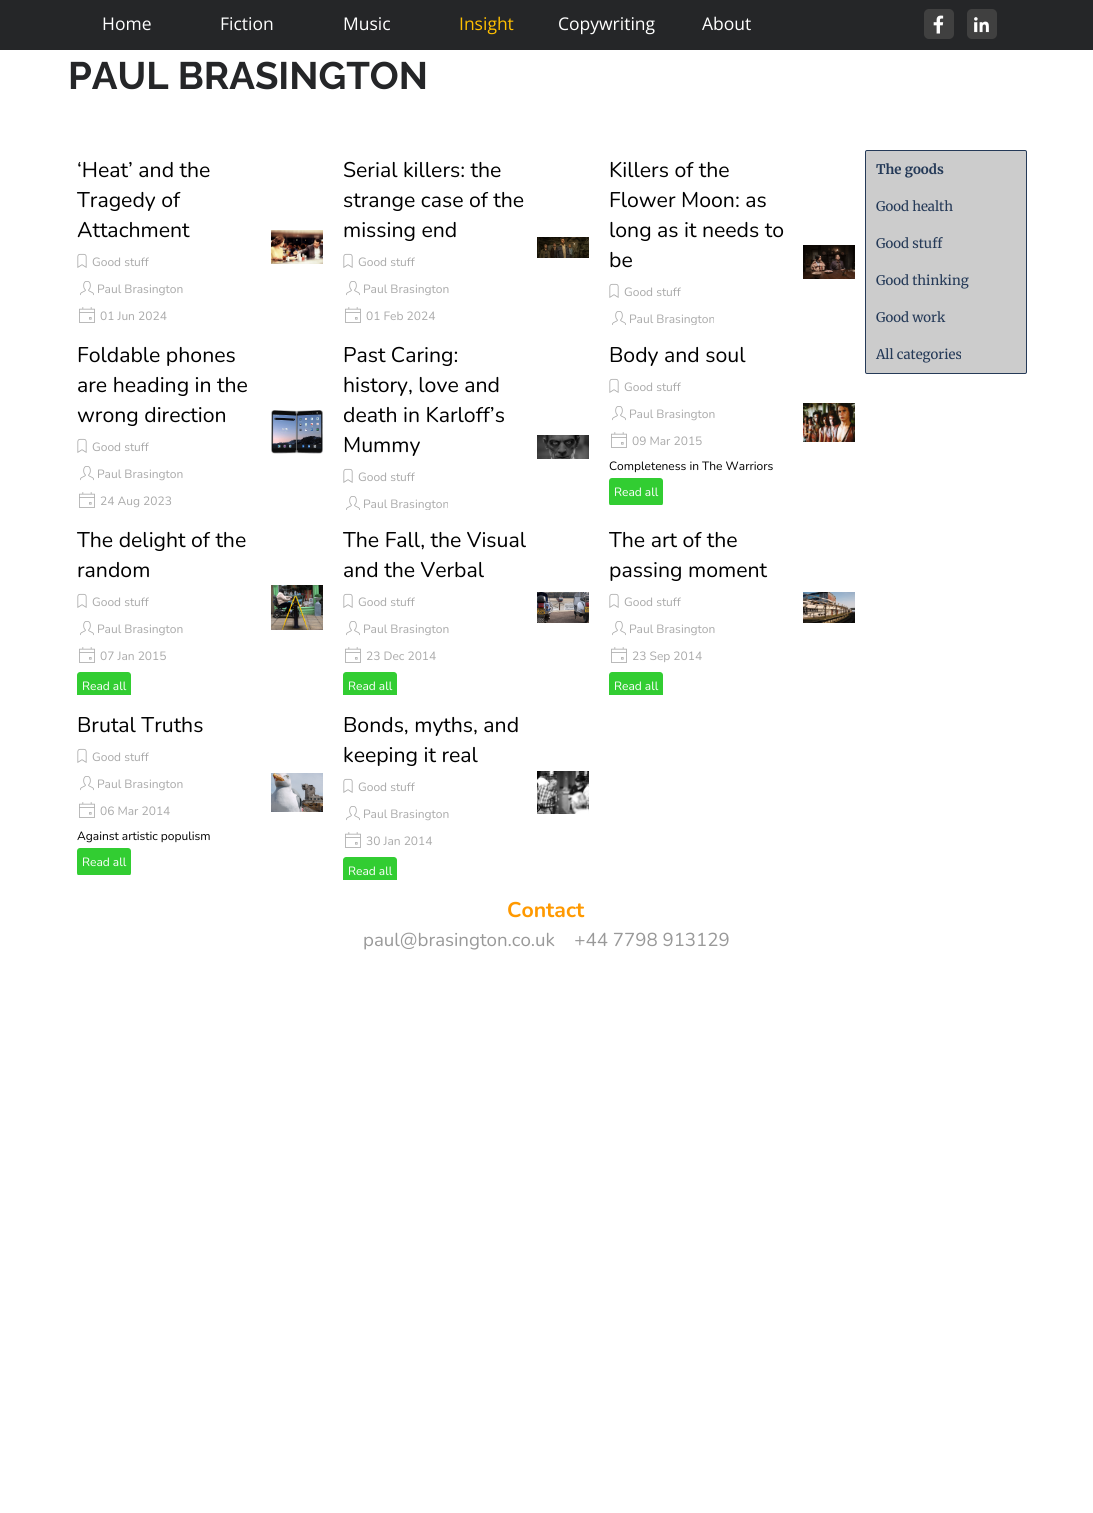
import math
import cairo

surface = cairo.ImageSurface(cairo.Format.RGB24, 1093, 1513)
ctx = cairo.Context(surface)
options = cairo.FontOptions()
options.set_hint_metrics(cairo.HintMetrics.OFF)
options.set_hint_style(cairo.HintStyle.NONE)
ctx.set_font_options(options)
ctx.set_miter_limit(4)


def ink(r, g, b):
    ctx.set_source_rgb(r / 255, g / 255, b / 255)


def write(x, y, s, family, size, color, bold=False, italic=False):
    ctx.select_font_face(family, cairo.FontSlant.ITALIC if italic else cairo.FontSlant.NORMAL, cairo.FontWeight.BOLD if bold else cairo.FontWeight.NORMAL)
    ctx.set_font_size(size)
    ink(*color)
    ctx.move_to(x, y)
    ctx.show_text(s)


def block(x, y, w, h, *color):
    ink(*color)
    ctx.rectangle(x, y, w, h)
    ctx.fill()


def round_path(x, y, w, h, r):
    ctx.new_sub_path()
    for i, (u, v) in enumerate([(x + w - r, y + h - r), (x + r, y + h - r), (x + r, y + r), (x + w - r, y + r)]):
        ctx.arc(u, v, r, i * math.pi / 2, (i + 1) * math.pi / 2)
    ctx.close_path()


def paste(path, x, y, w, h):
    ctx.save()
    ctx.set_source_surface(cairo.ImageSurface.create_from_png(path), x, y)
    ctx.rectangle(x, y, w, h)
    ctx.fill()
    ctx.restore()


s1 = dict(family="Open Sans", size=17.5, color=(255, 255, 255))
s2 = dict(family="Open Sans", size=17.5, color=(255, 191, 0))
s3 = dict(family="Raleway", size=38.25, color=(37, 38, 40), bold=True)
s4 = dict(family="Nunito", size=21.25, color=(0, 0, 0))
s5 = dict(family="Nunito", size=12, color=(169, 169, 169))
s6 = dict(family="Nunito", size=12, color=(0, 0, 0))
s7 = dict(family="Nunito", size=12, color=(255, 255, 255))
s8 = dict(family="Merriweather", size=13.25, color=(37, 58, 88), bold=True)
s9 = dict(family="Merriweather", size=13.25, color=(37, 58, 88))
s10 = dict(family="Nunito", size=21.25, color=(255, 153, 0), bold=True)
s11 = dict(family="Nunito", size=18.7, color=(153, 153, 153))

ink(255, 255, 255)
ctx.paint()
block(0, 0, 1093, 50, 37, 38, 40)
write(102, 30, "Home", **s1)
write(220, 30, "Fiction", **s1)
write(343, 30, "Music", **s1)
write(459, 30, "Insight", **s2)
write(558, 30, "Copywriting", **s1)
write(702, 30, "About", **s1)
ink(64, 64, 64)
round_path(924, 9, 30, 30, 5)
ctx.fill()
paste("pic1.png", 933, 15, 11, 19)
round_path(967, 9, 30, 30, 5)
ctx.fill()
paste("pic2.png", 974, 17, 15, 16)
write(68, 89, "PAUL BRASINGTON", **s3)
write(77, 177, "‘Heat’ and the", **s4)
write(77, 207, "Tragedy of", **s4)
write(77, 237, "Attachment", **s4)
paste("pic3.png", 77, 253, 10, 15)
write(92, 266, "Good stuff", **s5)
paste("pic4.png", 80, 281, 14, 15)
write(97, 293, "Paul Brasington", **s5)
paste("pic5.png", 79, 307, 16, 16)
write(100, 320, "01 Jun 2024", **s5)
paste("pic6.png", 271, 230, 52, 34)
write(343, 177, "Serial killers: the", **s4)
write(343, 207, "strange case of the", **s4)
write(343, 237, "missing end", **s4)
paste("pic3.png", 343, 253, 10, 15)
write(358, 266, "Good stuff", **s5)
paste("pic4.png", 346, 281, 14, 15)
write(363, 293, "Paul Brasington", **s5)
paste("pic5.png", 345, 307, 16, 16)
write(366, 320, "01 Feb 2024", **s5)
paste("pic7.png", 537, 237, 52, 21)
write(609, 177, "Killers of the", **s4)
write(609, 207, "Flower Moon: as", **s4)
write(609, 237, "long as it needs to", **s4)
write(609, 267, "be", **s4)
paste("pic3.png", 609, 283, 10, 15)
write(624, 296, "Good stuff", **s5)
paste("pic8.png", 612, 311, 14, 14)
ctx.save()
ctx.rectangle(599, 150, 256, 175)
ctx.clip()
write(629, 323, "Paul Brasington", **s5)
ctx.restore()
paste("pic9.png", 803, 245, 52, 34)
write(77, 362, "Foldable phones", **s4)
write(77, 392, "are heading in the", **s4)
write(77, 422, "wrong direction", **s4)
paste("pic3.png", 77, 438, 10, 15)
write(92, 451, "Good stuff", **s5)
paste("pic4.png", 80, 466, 14, 15)
write(97, 478, "Paul Brasington", **s5)
paste("pic5.png", 79, 492, 16, 16)
write(100, 505, "24 Aug 2023", **s5)
paste("pic10.png", 271, 410, 52, 44)
write(343, 362, "Past Caring:", **s4)
write(343, 392, "history, love and", **s4)
write(343, 422, "death in Karloff’s", **s4)
write(343, 452, "Mummy", **s4)
paste("pic3.png", 343, 468, 10, 15)
write(358, 481, "Good stuff", **s5)
paste("pic8.png", 346, 496, 14, 14)
ctx.save()
ctx.rectangle(333, 335, 256, 175)
ctx.clip()
write(363, 508, "Paul Brasington", **s5)
ctx.restore()
paste("pic11.png", 537, 435, 52, 24)
write(609, 362, "Body and soul", **s4)
paste("pic3.png", 609, 378, 10, 15)
write(624, 391, "Good stuff", **s5)
paste("pic4.png", 612, 406, 14, 15)
write(629, 418, "Paul Brasington", **s5)
paste("pic5.png", 611, 432, 16, 16)
write(632, 445, "09 Mar 2015", **s5)
paste("pic12.png", 803, 403, 52, 39)
write(609, 470, "Completeness in The Warriors", **s6)
ctx.save()
ctx.rectangle(609, 478, 184, 27)
ctx.clip()
ink(50, 205, 50)
round_path(609, 478, 54, 28, 3)
ctx.fill()
ctx.restore()
write(614, 496, "Read all", **s7)
write(77, 547, "The delight of the", **s4)
write(77, 577, "random", **s4)
paste("pic3.png", 77, 593, 10, 15)
write(92, 606, "Good stuff", **s5)
paste("pic4.png", 80, 621, 14, 15)
write(97, 633, "Paul Brasington", **s5)
paste("pic5.png", 79, 647, 16, 16)
write(100, 660, "07 Jan 2015", **s5)
paste("pic13.png", 271, 585, 52, 45)
ink(50, 205, 50)
ctx.new_path()
ctx.move_to(80, 672)
ctx.line_to(128, 672)
ctx.curve_to(129.5, 672, 131, 673.5, 131, 675)
ctx.line_to(131, 695)
ctx.line_to(77, 695)
ctx.line_to(77, 675)
ctx.curve_to(77, 673.5, 78.5, 672, 80, 672)
ctx.close_path()
ctx.fill()
write(82, 690, "Read all", **s7)
write(343, 547, "The Fall, the Visual", **s4)
write(343, 577, "and the Verbal", **s4)
paste("pic3.png", 343, 593, 10, 15)
write(358, 606, "Good stuff", **s5)
paste("pic4.png", 346, 621, 14, 15)
write(363, 633, "Paul Brasington", **s5)
paste("pic5.png", 345, 647, 16, 16)
write(366, 660, "23 Dec 2014", **s5)
paste("pic14.png", 537, 592, 52, 31)
ink(50, 205, 50)
ctx.new_path()
ctx.move_to(346, 672)
ctx.line_to(394, 672)
ctx.curve_to(395.5, 672, 397, 673.5, 397, 675)
ctx.line_to(397, 695)
ctx.line_to(343, 695)
ctx.line_to(343, 675)
ctx.curve_to(343, 673.5, 344.5, 672, 346, 672)
ctx.close_path()
ctx.fill()
write(348, 690, "Read all", **s7)
write(609, 547, "The art of the", **s4)
write(609, 577, "passing moment", **s4)
paste("pic3.png", 609, 593, 10, 15)
write(624, 606, "Good stuff", **s5)
paste("pic4.png", 612, 621, 14, 15)
write(629, 633, "Paul Brasington", **s5)
paste("pic5.png", 611, 647, 16, 16)
write(632, 660, "23 Sep 2014", **s5)
paste("pic15.png", 803, 592, 52, 31)
ink(50, 205, 50)
ctx.new_path()
ctx.move_to(612, 672)
ctx.line_to(660, 672)
ctx.curve_to(661.5, 672, 663, 673.5, 663, 675)
ctx.line_to(663, 695)
ctx.line_to(609, 695)
ctx.line_to(609, 675)
ctx.curve_to(609, 673.5, 610.5, 672, 612, 672)
ctx.close_path()
ctx.fill()
write(614, 690, "Read all", **s7)
write(77, 732, "Brutal Truths", **s4)
paste("pic3.png", 77, 748, 10, 15)
write(92, 761, "Good stuff", **s5)
paste("pic4.png", 80, 776, 14, 15)
write(97, 788, "Paul Brasington", **s5)
paste("pic5.png", 79, 802, 16, 16)
write(100, 815, "06 Mar 2014", **s5)
paste("pic16.png", 271, 773, 52, 39)
write(77, 840, "Against artistic populism", **s6)
ctx.save()
ctx.rectangle(77, 848, 184, 27)
ctx.clip()
ink(50, 205, 50)
round_path(77, 848, 54, 28, 3)
ctx.fill()
ctx.restore()
write(82, 866, "Read all", **s7)
write(343, 732, "Bonds, myths, and", **s4)
write(343, 762, "keeping it real", **s4)
paste("pic3.png", 343, 778, 10, 15)
write(358, 791, "Good stuff", **s5)
paste("pic4.png", 346, 806, 14, 15)
write(363, 818, "Paul Brasington", **s5)
paste("pic5.png", 345, 832, 16, 16)
write(366, 845, "30 Jan 2014", **s5)
paste("pic17.png", 537, 771, 52, 43)
ink(50, 205, 50)
ctx.new_path()
ctx.move_to(346, 857)
ctx.line_to(394, 857)
ctx.curve_to(395.5, 857, 397, 858.5, 397, 860)
ctx.line_to(397, 880)
ctx.line_to(343, 880)
ctx.line_to(343, 860)
ctx.curve_to(343, 858.5, 344.5, 857, 346, 857)
ctx.close_path()
ctx.fill()
write(348, 875, "Read all", **s7)
ink(204, 204, 204)
round_path(865.5, 150.5, 161, 223, 1.5)
ctx.fill_preserve()
ink(37, 58, 88)
ctx.set_line_width(1)
ctx.stroke()
write(876, 174, "The goods", **s8)
write(876, 211, "Good health", **s9)
write(876, 248, "Good stuff", **s9)
write(876, 285, "Good thinking", **s9)
write(876, 322, "Good work", **s9)
write(876, 359, "All categories", **s9)
write(507, 917, "Contact", **s10)
write(363, 946, "paul@brasington.co.uk    +44 7798 913129", **s11)
surface.write_to_png("screenshot.png")
